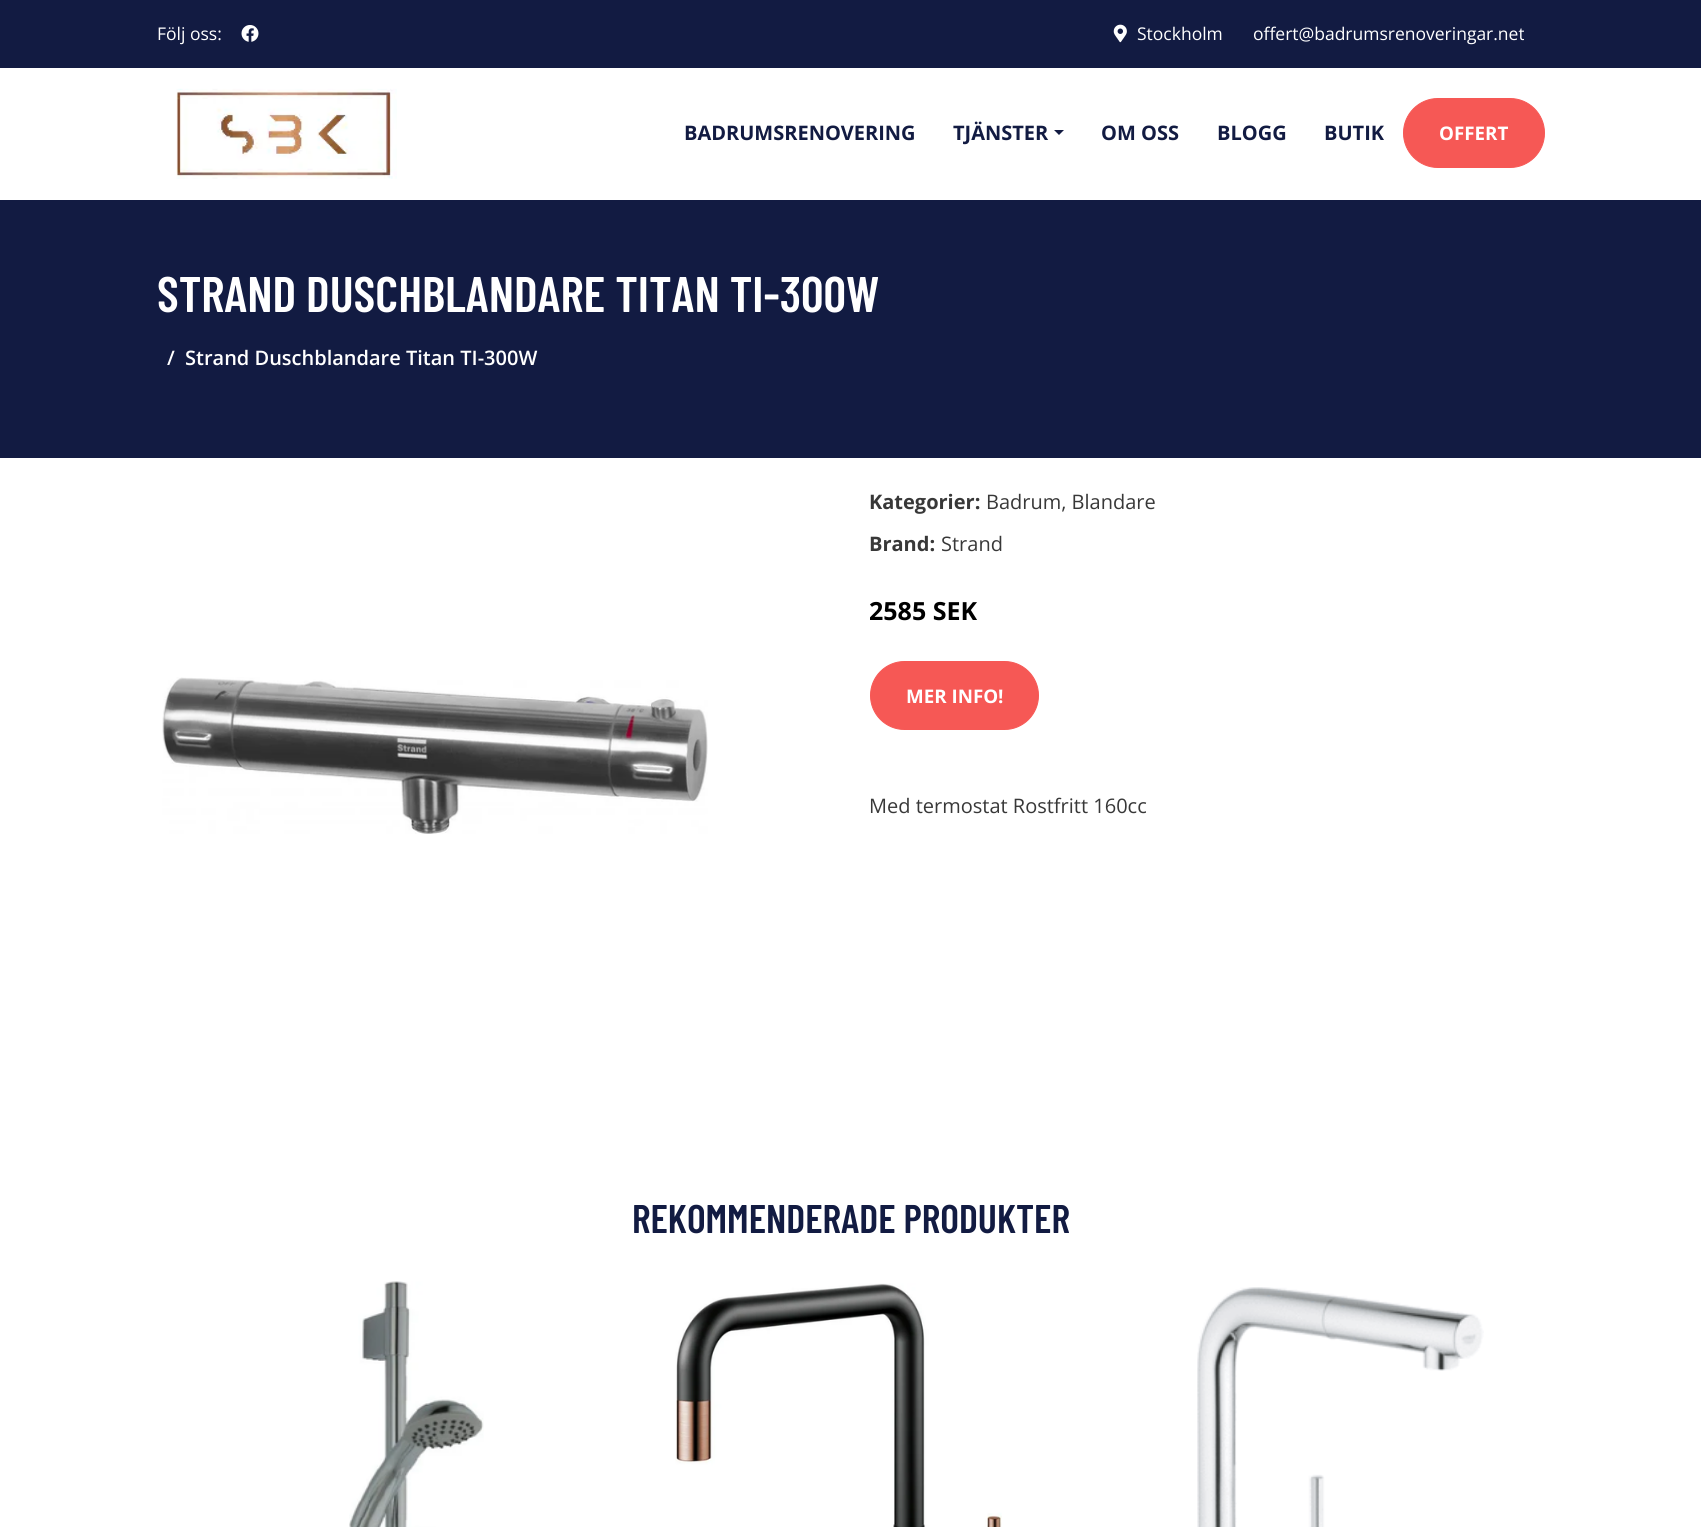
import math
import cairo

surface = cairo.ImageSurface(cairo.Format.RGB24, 1701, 1527)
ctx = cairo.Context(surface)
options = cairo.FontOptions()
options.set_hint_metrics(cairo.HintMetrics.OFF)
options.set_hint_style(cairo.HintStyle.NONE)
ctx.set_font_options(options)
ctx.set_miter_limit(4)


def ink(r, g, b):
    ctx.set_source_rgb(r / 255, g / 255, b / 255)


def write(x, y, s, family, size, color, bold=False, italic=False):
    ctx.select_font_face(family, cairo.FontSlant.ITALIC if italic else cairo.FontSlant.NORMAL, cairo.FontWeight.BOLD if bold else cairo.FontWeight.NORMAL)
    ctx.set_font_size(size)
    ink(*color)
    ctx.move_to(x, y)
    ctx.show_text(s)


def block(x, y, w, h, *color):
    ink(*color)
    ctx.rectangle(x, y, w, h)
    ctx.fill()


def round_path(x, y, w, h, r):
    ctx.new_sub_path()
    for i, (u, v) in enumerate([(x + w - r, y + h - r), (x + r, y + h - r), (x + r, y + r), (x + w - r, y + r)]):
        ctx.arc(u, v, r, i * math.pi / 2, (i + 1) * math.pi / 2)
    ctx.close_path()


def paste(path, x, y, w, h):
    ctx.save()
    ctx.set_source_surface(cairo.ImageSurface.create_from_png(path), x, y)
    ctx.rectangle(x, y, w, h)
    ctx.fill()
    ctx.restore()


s1 = dict(family="Open Sans", size=17.5, color=(255, 255, 255))
s2 = dict(family="Open Sans", size=20, color=(18, 27, 66), bold=True)
s3 = dict(family="Open Sans", size=18.75, color=(255, 255, 255), bold=True)
s4 = dict(family="Barlow Condensed SemiBold", size=50, color=(255, 255, 255))
s5 = dict(family="Open Sans SemiBold", size=20, color=(255, 255, 255))
s6 = dict(family="Open Sans", size=20, color=(56, 56, 56), bold=True)
s7 = dict(family="Open Sans", size=20, color=(56, 56, 56))
s8 = dict(family="Open Sans", size=25, color=(0, 0, 0), bold=True)
s9 = dict(family="Barlow Condensed SemiBold", size=40, color=(18, 27, 66))

ink(255, 255, 255)
ctx.paint()
block(0, 0, 1701, 68, 18, 27, 66)
write(157, 40, "Följ oss:", **s1)
paste("pic1.png", 241, 25, 18, 17)
paste("pic2.png", 1113, 24, 14, 19)
write(1137, 40, "Stockholm", **s1)
write(1253, 40, "offert@badrumsrenoveringar.net", **s1)
paste("pic3.png", 176, 88, 221, 91)
write(684, 140, "BADRUMSRENOVERING", **s2)
write(953, 140, "TJÄNSTER", **s2)
ctx.new_path()
ctx.move_to(1054, 130)
ctx.line_to(1064, 130)
ctx.line_to(1059, 135)
ctx.close_path()
ctx.fill()
write(1101, 140, "OM OSS", **s2)
write(1217, 140, "BLOGG", **s2)
write(1324, 140, "BUTIK", **s2)
ink(246, 88, 85)
round_path(1403.5, 98.5, 141, 69, 34.5)
ctx.fill_preserve()
ctx.set_line_width(1)
ctx.stroke()
write(1439, 140, "OFFERT", **s3)
block(0, 200, 1701, 258, 18, 27, 66)
write(157, 312, "STRAND DUSCHBLANDARE TITAN TI-300W", **s4)
write(167, 365, "/", **s5)
write(185, 365, "Strand Duschblandare Titan TI-300W", **s5)
paste("pic4.png", 162, 677, 546, 157)
write(869, 509, "Kategorier:", **s6)
write(986, 509, "Badrum, Blandare", **s7)
write(869, 551, "Brand:", **s6)
write(941, 551, "Strand", **s7)
write(869, 620, "2585 SEK", **s8)
ink(246, 88, 85)
round_path(870.5, 661.5, 168, 68, 34)
ctx.fill_preserve()
ctx.stroke()
write(906, 703, "MER INFO!", **s3)
write(869, 813, "Med termostat Rostfritt 160cc", **s7)
write(632, 1233, "REKOMMENDERADE PRODUKTER", **s9)
paste("pic5.png", 349, 1281, 135, 246)
paste("pic6.png", 675, 1283, 327, 244)
paste("pic7.png", 1197, 1287, 287, 240)
surface.write_to_png("screenshot.png")
